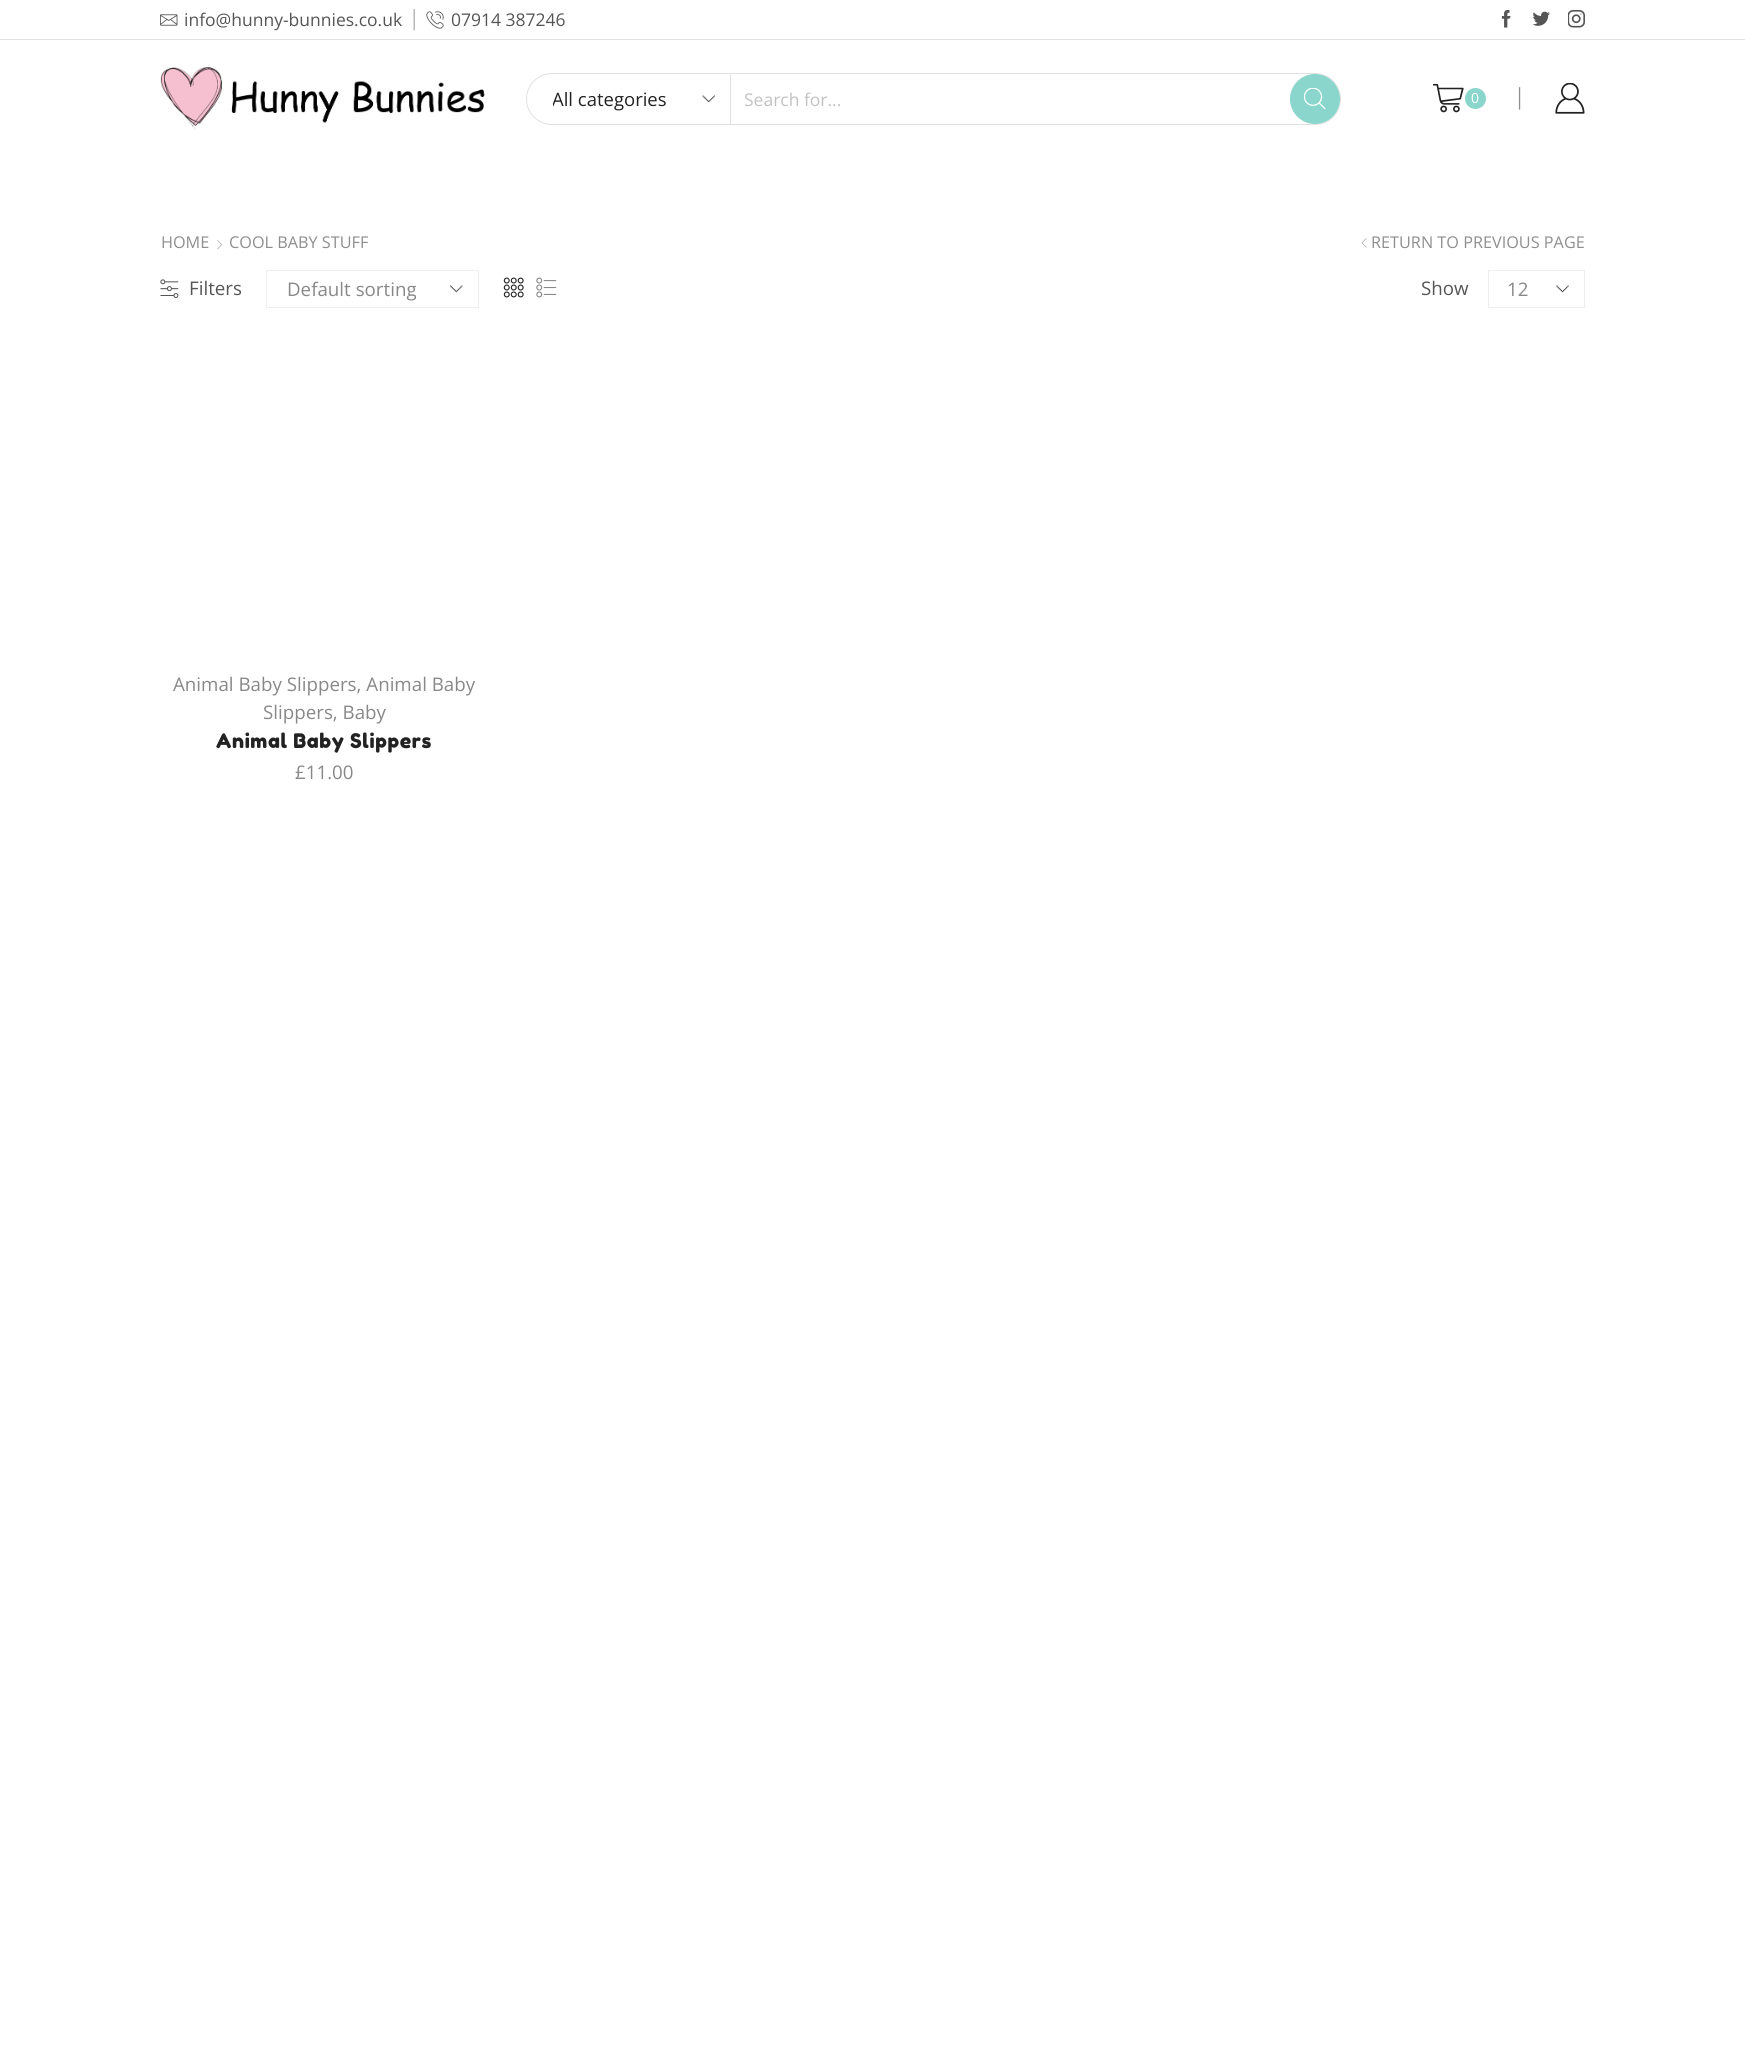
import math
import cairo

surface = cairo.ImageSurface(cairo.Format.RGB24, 1745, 2068)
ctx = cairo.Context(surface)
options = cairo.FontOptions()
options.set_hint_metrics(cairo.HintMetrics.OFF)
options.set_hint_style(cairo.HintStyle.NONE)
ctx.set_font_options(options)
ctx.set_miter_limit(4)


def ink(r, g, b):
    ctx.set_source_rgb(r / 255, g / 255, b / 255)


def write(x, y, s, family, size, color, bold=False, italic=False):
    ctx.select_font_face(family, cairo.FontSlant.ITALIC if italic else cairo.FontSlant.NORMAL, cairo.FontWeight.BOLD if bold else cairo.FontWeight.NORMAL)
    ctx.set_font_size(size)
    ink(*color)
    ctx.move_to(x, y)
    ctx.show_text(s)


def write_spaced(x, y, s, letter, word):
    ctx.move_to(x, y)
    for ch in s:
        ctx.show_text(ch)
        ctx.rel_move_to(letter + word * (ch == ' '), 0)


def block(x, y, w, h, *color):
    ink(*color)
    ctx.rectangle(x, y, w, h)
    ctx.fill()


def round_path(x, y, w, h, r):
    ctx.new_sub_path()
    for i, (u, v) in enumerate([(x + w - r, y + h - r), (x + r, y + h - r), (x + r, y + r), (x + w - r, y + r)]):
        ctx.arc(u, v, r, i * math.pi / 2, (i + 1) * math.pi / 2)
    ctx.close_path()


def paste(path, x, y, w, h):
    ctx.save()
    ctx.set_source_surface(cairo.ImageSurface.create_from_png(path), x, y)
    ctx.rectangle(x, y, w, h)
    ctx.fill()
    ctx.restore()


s1 = dict(family="Open Sans", size=17.5, color=(85, 85, 85))
s2 = dict(family="Liberation Serif", size=17.5, color=(170, 170, 170))
s3 = dict(family="Open Sans", size=18.5, color=(34, 34, 34))
s4 = dict(family="Open Sans", size=17.5, color=(194, 194, 194))
s5 = dict(family="Open Sans", size=14, color=(255, 255, 255))
s6 = dict(family="Liberation Serif", size=18.5, color=(142, 142, 142))
s7 = dict(family="Open Sans", size=16.25, color=(142, 142, 142))
s8 = dict(family="Open Sans", size=18.75, color=(85, 85, 85))
s9 = dict(family="Open Sans", size=18.75, color=(136, 136, 136))

ink(255, 255, 255)
ctx.paint()
block(0, 39, 1745, 1, 225, 225, 225)
paste("pic1.png", 160, 14, 18, 12)
write(184, 26, "info@hunny-bunnies.co.uk", **s1)
write(408, 25, "│", **s2)
paste("pic2.png", 426, 11, 18, 18)
write(451, 26, "07914 387246", **s1)
paste("pic3.png", 1501, 10, 10, 18)
paste("pic4.png", 1533, 11, 17, 15)
paste("pic5.png", 1568, 10, 17, 18)
paste("pic6.png", 160, 67, 325, 62)
round_path(526.5, 73.5, 814, 51, 25.5)
ink(225, 225, 225)
ctx.set_line_width(1)
ctx.stroke()
paste("pic7.png", 702, 95, 13, 8)
ctx.save()
ctx.rectangle(553, 86, 143, 25)
ctx.clip()
write(552, 106, "All categories", **s3)
ctx.restore()
block(730, 74, 1, 50, 225, 225, 225)
write(744, 106, "Search for...", **s4)
ink(138, 214, 204)
ctx.new_path()
ctx.arc(1315, 99, 25, 0, 2 * math.pi)
ctx.fill()
paste("pic8.png", 1304, 88, 22, 21)
paste("pic9.png", 1433, 83, 31, 30)
ctx.arc(1475.5, 98.5, 10.5, 0, 2 * math.pi)
ctx.fill()
write(1471, 103, "0", **s5)
write(1513, 104, "│", **s6)
paste("pic10.png", 1555, 83, 30, 31)
write(161, 248, "HOME", **s7)
paste("pic11.png", 217, 240, 5, 10)
write(229, 248, "COOL BABY STUFF", **s7)
paste("pic12.png", 1361, 238, 6, 10)
write(1371, 248, "RETURN TO PREVIOUS PAGE", **s7)
paste("pic13.png", 160, 279, 19, 19)
write(189, 295, "Filters", **s8)
paste("pic14.png", 450, 285, 13, 8)
ctx.rectangle(266.5, 270.5, 212, 37)
ink(238, 238, 238)
ctx.stroke()
write(287, 296, "Default sorting", **s9)
paste("pic15.png", 503, 277, 21, 21)
paste("pic16.png", 536, 277, 21, 21)
write(1421, 295, "Show", **s8)
paste("pic17.png", 1556, 285, 13, 8)
ctx.rectangle(1488.5, 270.5, 96, 37)
ink(238, 238, 238)
ctx.stroke()
write(1507, 296, "12", **s9)
write(173, 691, "Animal Baby Slippers, Animal Baby", **s9)
write(263, 719, "Slippers, Baby", **s9)
ctx.select_font_face("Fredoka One")
ctx.set_font_size(20)
ink(34, 34, 34)
write_spaced(216, 748, "Animal Baby Slippers", 0.6, 0)
write(295, 779, "£11.00", **s9)
surface.write_to_png("screenshot.png")
